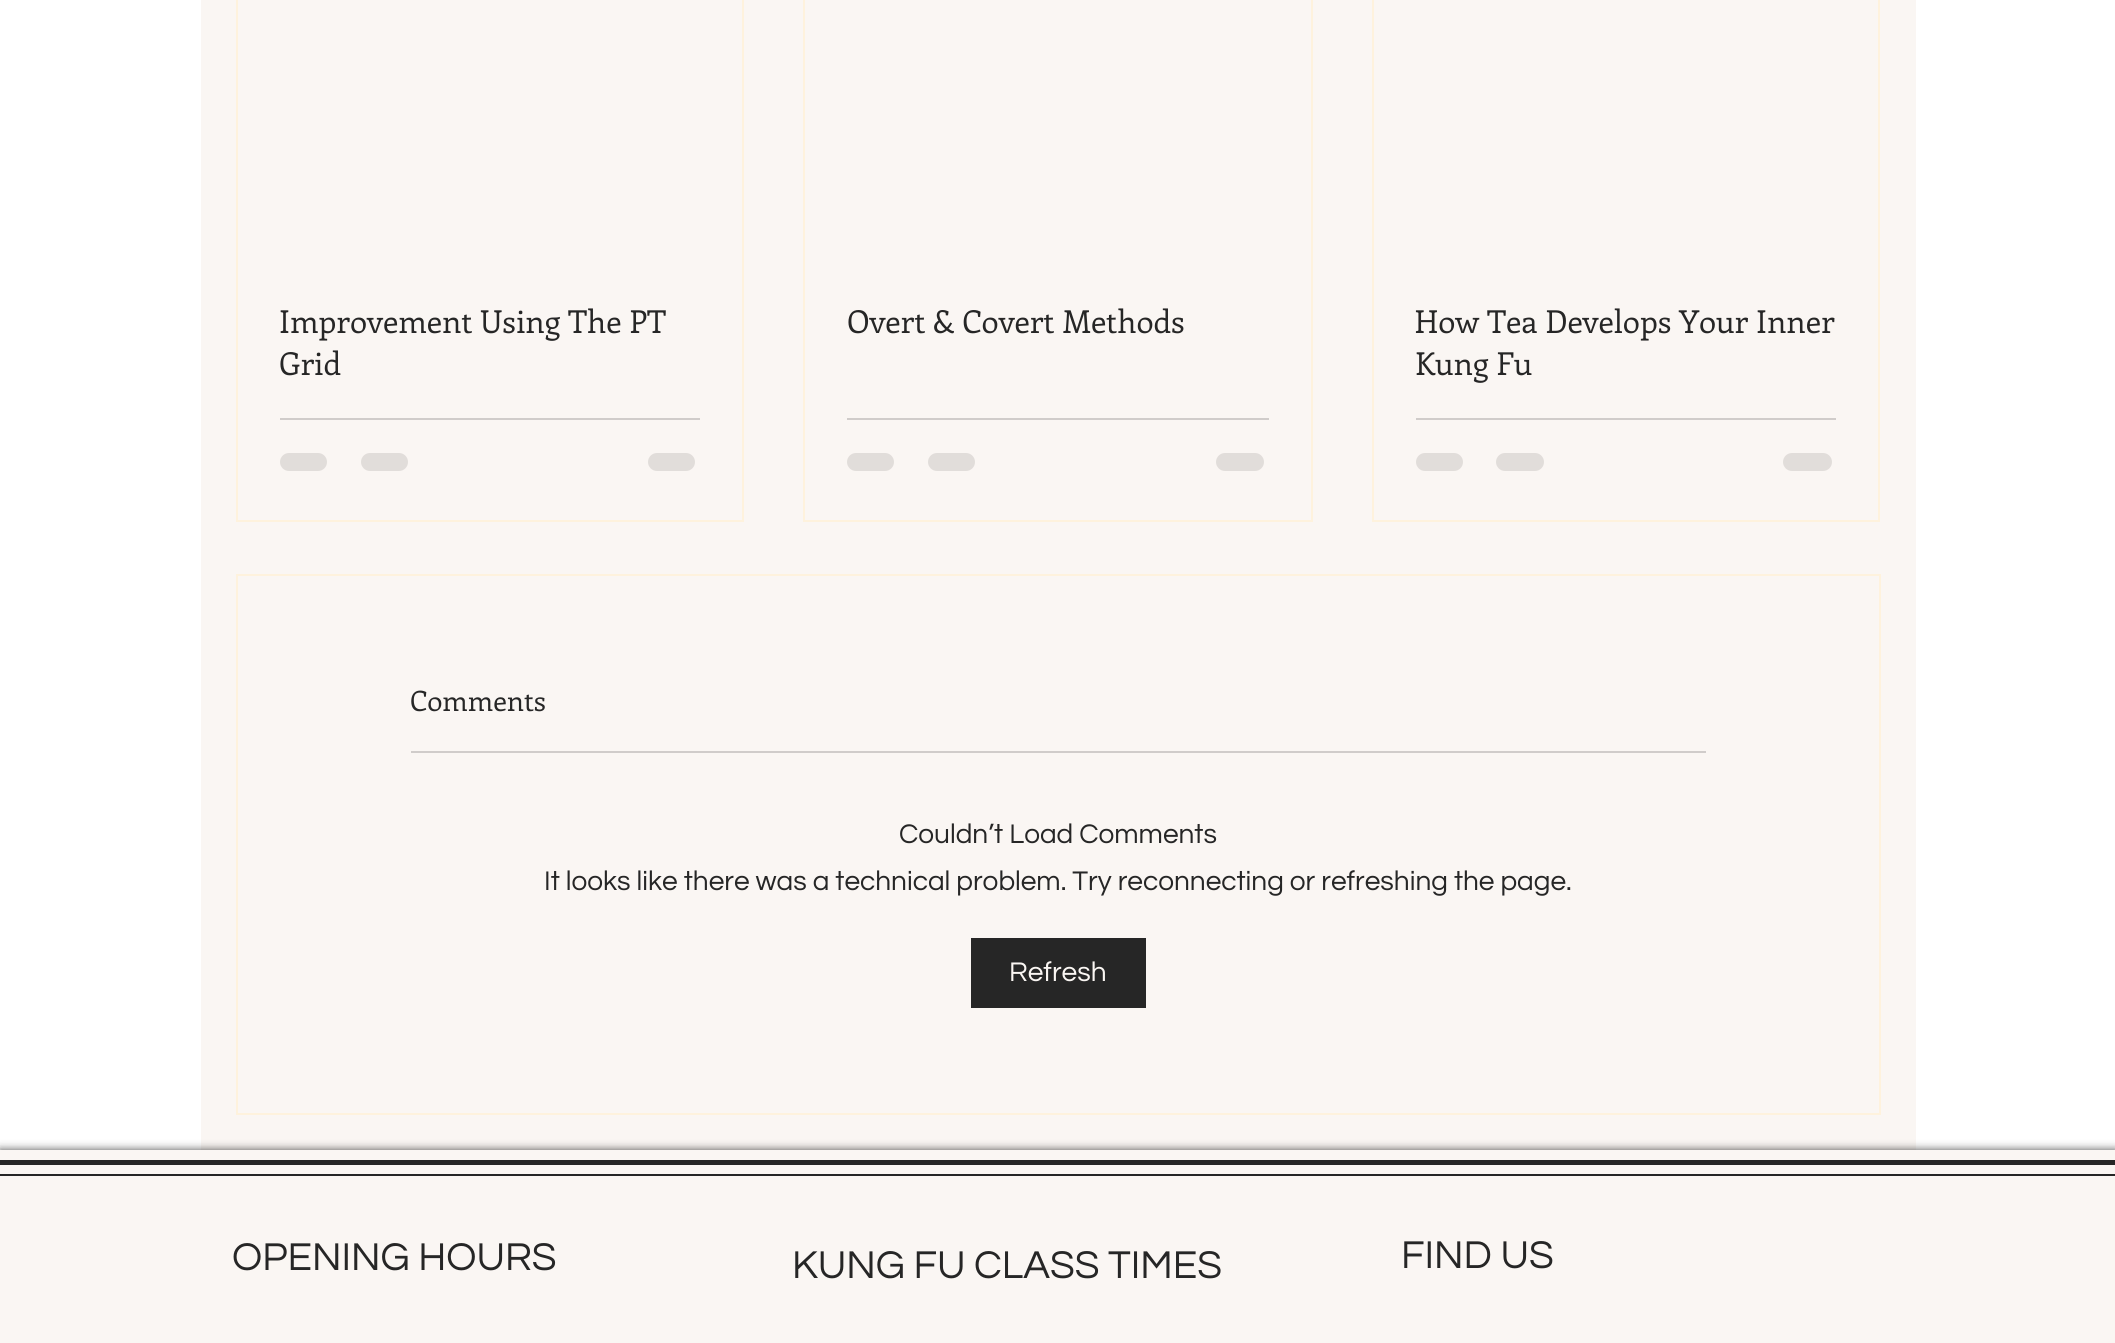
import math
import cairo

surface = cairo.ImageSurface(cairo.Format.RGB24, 2115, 1343)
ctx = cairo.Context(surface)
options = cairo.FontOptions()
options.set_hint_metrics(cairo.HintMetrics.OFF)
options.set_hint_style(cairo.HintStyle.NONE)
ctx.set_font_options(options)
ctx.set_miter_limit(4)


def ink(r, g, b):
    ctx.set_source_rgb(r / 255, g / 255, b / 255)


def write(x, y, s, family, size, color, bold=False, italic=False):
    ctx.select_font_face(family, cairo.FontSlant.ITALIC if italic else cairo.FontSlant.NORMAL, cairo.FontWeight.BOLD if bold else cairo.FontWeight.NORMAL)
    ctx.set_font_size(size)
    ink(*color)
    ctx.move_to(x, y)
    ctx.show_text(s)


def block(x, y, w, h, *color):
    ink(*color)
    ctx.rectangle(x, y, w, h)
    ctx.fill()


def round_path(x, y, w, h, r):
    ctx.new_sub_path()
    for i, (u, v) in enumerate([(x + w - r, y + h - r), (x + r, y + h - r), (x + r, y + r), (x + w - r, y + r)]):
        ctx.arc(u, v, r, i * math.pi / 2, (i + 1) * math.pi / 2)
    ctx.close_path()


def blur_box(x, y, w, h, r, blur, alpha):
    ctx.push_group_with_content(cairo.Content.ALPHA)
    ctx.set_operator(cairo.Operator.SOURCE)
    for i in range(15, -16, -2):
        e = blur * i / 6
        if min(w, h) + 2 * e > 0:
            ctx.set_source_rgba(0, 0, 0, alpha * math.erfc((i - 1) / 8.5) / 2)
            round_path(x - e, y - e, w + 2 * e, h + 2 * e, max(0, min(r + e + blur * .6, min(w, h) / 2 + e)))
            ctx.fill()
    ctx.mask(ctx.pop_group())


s1 = dict(family="Enriqueta", size=31.5, color=(38, 38, 38))
s2 = dict(family="Enriqueta", size=28, color=(38, 38, 38))
s3 = dict(family="Questrial", size=28, color=(38, 38, 38))
s4 = dict(family="Questrial", size=28, color=(250, 246, 243))
s5 = dict(family="Questrial", size=40.25, color=(38, 38, 38))

ink(255, 255, 255)
ctx.paint()
block(201, 0, 1715, 1150, 250, 246, 243)
ctx.rectangle(237, -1, 506, 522)
ink(254, 242, 221)
ctx.stroke()
write(279, 333, "Improvement Using The PT", **s1)
write(279, 375, "Grid", **s1)
block(280, 418, 420, 2, 208, 204, 202)
ink(225, 221, 218)
round_path(280, 453, 47, 18, 9)
ctx.fill()
round_path(361, 453, 47, 18, 9)
ctx.fill()
round_path(648, 453, 47, 18, 9)
ctx.fill()
ctx.rectangle(804, -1, 508, 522)
ink(254, 242, 221)
ctx.stroke()
write(847, 333, "Overt & Covert Methods", **s1)
block(847, 418, 422, 2, 208, 204, 202)
ink(225, 221, 218)
round_path(847, 453, 47, 18, 9)
ctx.fill()
round_path(928, 453, 47, 18, 9)
ctx.fill()
round_path(1216, 453, 48, 18, 9)
ctx.fill()
ctx.rectangle(1373, -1, 506, 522)
ink(254, 242, 221)
ctx.stroke()
write(1415, 333, "How Tea Develops Your Inner", **s1)
write(1415, 375, "Kung Fu", **s1)
block(1416, 418, 420, 2, 208, 204, 202)
ink(225, 221, 218)
round_path(1416, 453, 47, 18, 9)
ctx.fill()
round_path(1496, 453, 48, 18, 9)
ctx.fill()
round_path(1783, 453, 49, 18, 9)
ctx.fill()
ctx.rectangle(237, 575, 1643, 539)
ink(254, 242, 221)
ctx.stroke()
write(410, 711, "Comments", **s2)
block(411, 751, 1295, 2, 208, 204, 202)
write(899, 843, "Couldn’t Load Comments", **s3)
write(544, 890, "It looks like there was a technical problem. Try reconnecting or refreshing the page.", **s3)
block(971, 938, 175, 70, 38, 38, 38)
write(1009, 981, "Refresh", **s4)
ink(0, 0, 0)
blur_box(0, 1150, 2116, 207, 0, 4.5, 0.7)
block(0, 1150, 2115, 193, 250, 246, 243)
block(0, 1160, 2115, 5, 38, 38, 38)
block(0, 1174, 2115, 2, 38, 38, 38)
write(232, 1270, "OPENING HOURS", **s5)
write(792, 1278, "KUNG FU CLASS TIMES", **s5)
write(1401, 1268, "FIND US", **s5)
surface.write_to_png("screenshot.png")
